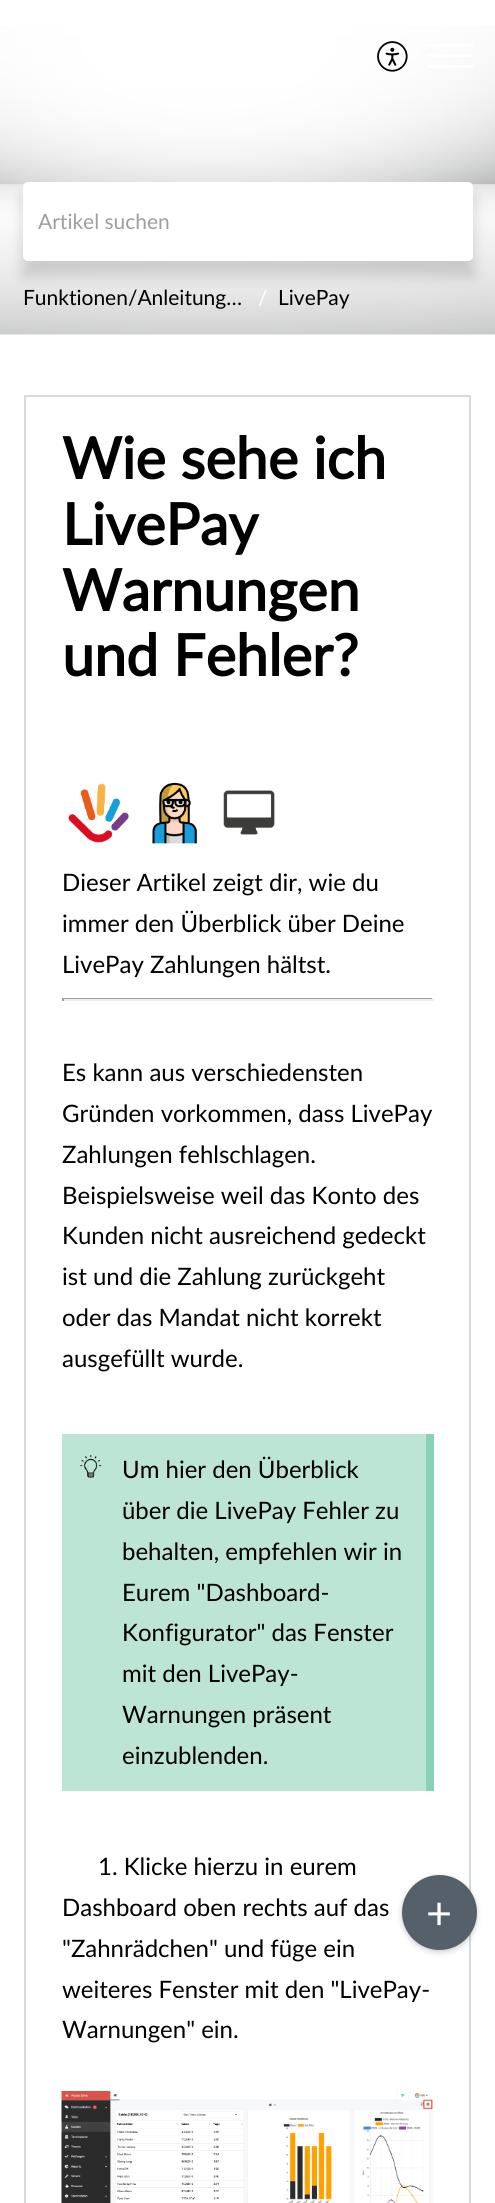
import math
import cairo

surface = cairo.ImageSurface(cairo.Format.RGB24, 495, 2203)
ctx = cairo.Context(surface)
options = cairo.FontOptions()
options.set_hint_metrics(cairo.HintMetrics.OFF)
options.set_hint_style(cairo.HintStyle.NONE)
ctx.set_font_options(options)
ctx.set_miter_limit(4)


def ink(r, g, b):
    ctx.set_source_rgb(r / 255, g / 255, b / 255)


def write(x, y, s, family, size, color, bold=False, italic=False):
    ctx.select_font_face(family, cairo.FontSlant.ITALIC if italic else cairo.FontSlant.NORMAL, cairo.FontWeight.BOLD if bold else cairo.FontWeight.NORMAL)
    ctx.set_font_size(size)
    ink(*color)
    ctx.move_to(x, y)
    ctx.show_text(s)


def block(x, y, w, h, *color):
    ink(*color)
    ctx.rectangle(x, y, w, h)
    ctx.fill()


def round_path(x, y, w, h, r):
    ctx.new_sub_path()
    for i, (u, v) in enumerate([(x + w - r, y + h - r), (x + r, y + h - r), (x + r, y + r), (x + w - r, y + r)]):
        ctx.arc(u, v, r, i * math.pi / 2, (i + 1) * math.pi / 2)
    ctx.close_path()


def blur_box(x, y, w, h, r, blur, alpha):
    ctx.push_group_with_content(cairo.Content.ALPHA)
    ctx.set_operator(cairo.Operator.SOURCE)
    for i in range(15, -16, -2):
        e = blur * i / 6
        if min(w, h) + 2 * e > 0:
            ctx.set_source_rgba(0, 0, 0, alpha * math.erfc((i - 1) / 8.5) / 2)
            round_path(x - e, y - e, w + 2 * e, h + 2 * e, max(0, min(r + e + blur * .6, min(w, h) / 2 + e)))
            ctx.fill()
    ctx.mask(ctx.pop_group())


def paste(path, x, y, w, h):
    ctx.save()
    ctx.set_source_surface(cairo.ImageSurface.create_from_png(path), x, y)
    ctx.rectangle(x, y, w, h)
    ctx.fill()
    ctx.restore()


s1 = dict(family="Lato", size=21, color=(158, 158, 158))
s2 = dict(family="Lato", size=45, color=(255, 255, 255))
s3 = dict(family="Lato", size=21, color=(0, 0, 0))
s4 = dict(family="Lato", size=21, color=(255, 255, 255))
s5 = dict(family="Lato", size=57.5, color=(0, 0, 0), bold=True)
s6 = dict(family="Lato", size=24, color=(0, 0, 0))

ink(255, 255, 255)
ctx.paint()
paste("pic1.png", 0, 26, 495, 309)
paste("pic2.png", 377, 41, 31, 31)
block(428, 54, 45, 3, 255, 255, 255)
block(428, 44, 45, 3, 255, 255, 255)
block(428, 65, 45, 3, 255, 255, 255)
ink(0, 0, 0)
blur_box(23, 197, 450, 79, 0, 7.5, 0.16)
ink(255, 255, 255)
round_path(23, 182, 450, 79, 5)
ctx.fill()
write(38, 229, "Artikel suchen", **s1)
ctx.rectangle(25, 396, 445, 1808)
ink(212, 218, 223)
ctx.stroke()
ink(0, 0, 0)
blur_box(402, 1877, 75, 75, 37.5, 3, 0.2)
ink(86, 96, 107)
ctx.arc(439.5, 1912.5, 37.5, 0, 2 * math.pi)
ctx.fill()
write(426, 1929, "+", **s2)
write(23, 305, "Funktionen/Anleitung…", **s3)
write(258, 305, "/", **s4)
write(278, 305, "LivePay", **s3)
write(62, 479, "Wie sehe ich", **s5)
write(62, 545, "LivePay", **s5)
write(62, 611, "Warnungen", **s5)
write(62, 676, "und Fehler?", **s5)
paste("pic3.png", 68, 783, 61, 60)
paste("pic4.png", 152, 782, 46, 62)
paste("pic5.png", 223, 790, 52, 45)
write(62, 891, "Dieser Artikel zeigt dir, wie du", **s6)
write(62, 932, "immer den Überblick über Deine", **s6)
write(62, 973, "LivePay Zahlungen hältst.", **s6)
block(62, 998, 372, 1, 159, 159, 159)
block(432, 998, 2, 3, 238, 238, 238)
block(62, 999, 372, 2, 238, 238, 238)
block(62, 998, 2, 3, 159, 159, 159)
write(62, 1081, "Es kann aus verschiedensten", **s6)
write(62, 1122, "Gründen vorkommen, dass LivePay", **s6)
write(62, 1163, "Zahlungen fehlschlagen.", **s6)
write(62, 1204, "Beispielsweise weil das Konto des", **s6)
write(62, 1244, "Kunden nicht ausreichend gedeckt", **s6)
write(62, 1285, "ist und die Zahlung zurückgeht", **s6)
write(62, 1326, "oder das Mandat nicht korrekt", **s6)
write(62, 1367, "ausgefüllt wurde.", **s6)
block(62, 1434, 364, 357, 189, 229, 214)
block(426, 1434, 8, 357, 136, 209, 181)
paste("pic6.png", 80, 1455, 22, 23)
write(122, 1478, "Um hier den Überblick", **s6)
write(122, 1519, "über die LivePay Fehler zu", **s6)
write(122, 1560, "behalten, empfehlen wir in", **s6)
write(122, 1601, "Eurem \"Dashboard-", **s6)
write(122, 1641, "Konfigurator\" das Fenster", **s6)
write(122, 1682, "mit den LivePay-", **s6)
write(122, 1723, "Warnungen präsent", **s6)
write(122, 1764, "einzublenden.", **s6)
write(98, 1875, "1. Klicke hierzu in eurem", **s6)
write(62, 1916, "Dashboard oben rechts auf das", **s6)
write(62, 1957, "\"Zahnrädchen\" und füge ein", **s6)
write(62, 1998, "weiteres Fenster mit den \"LivePay-", **s6)
write(62, 2038, "Warnungen\" ein.", **s6)
paste("pic7.png", 61, 2091, 373, 112)
surface.write_to_png("screenshot.png")
